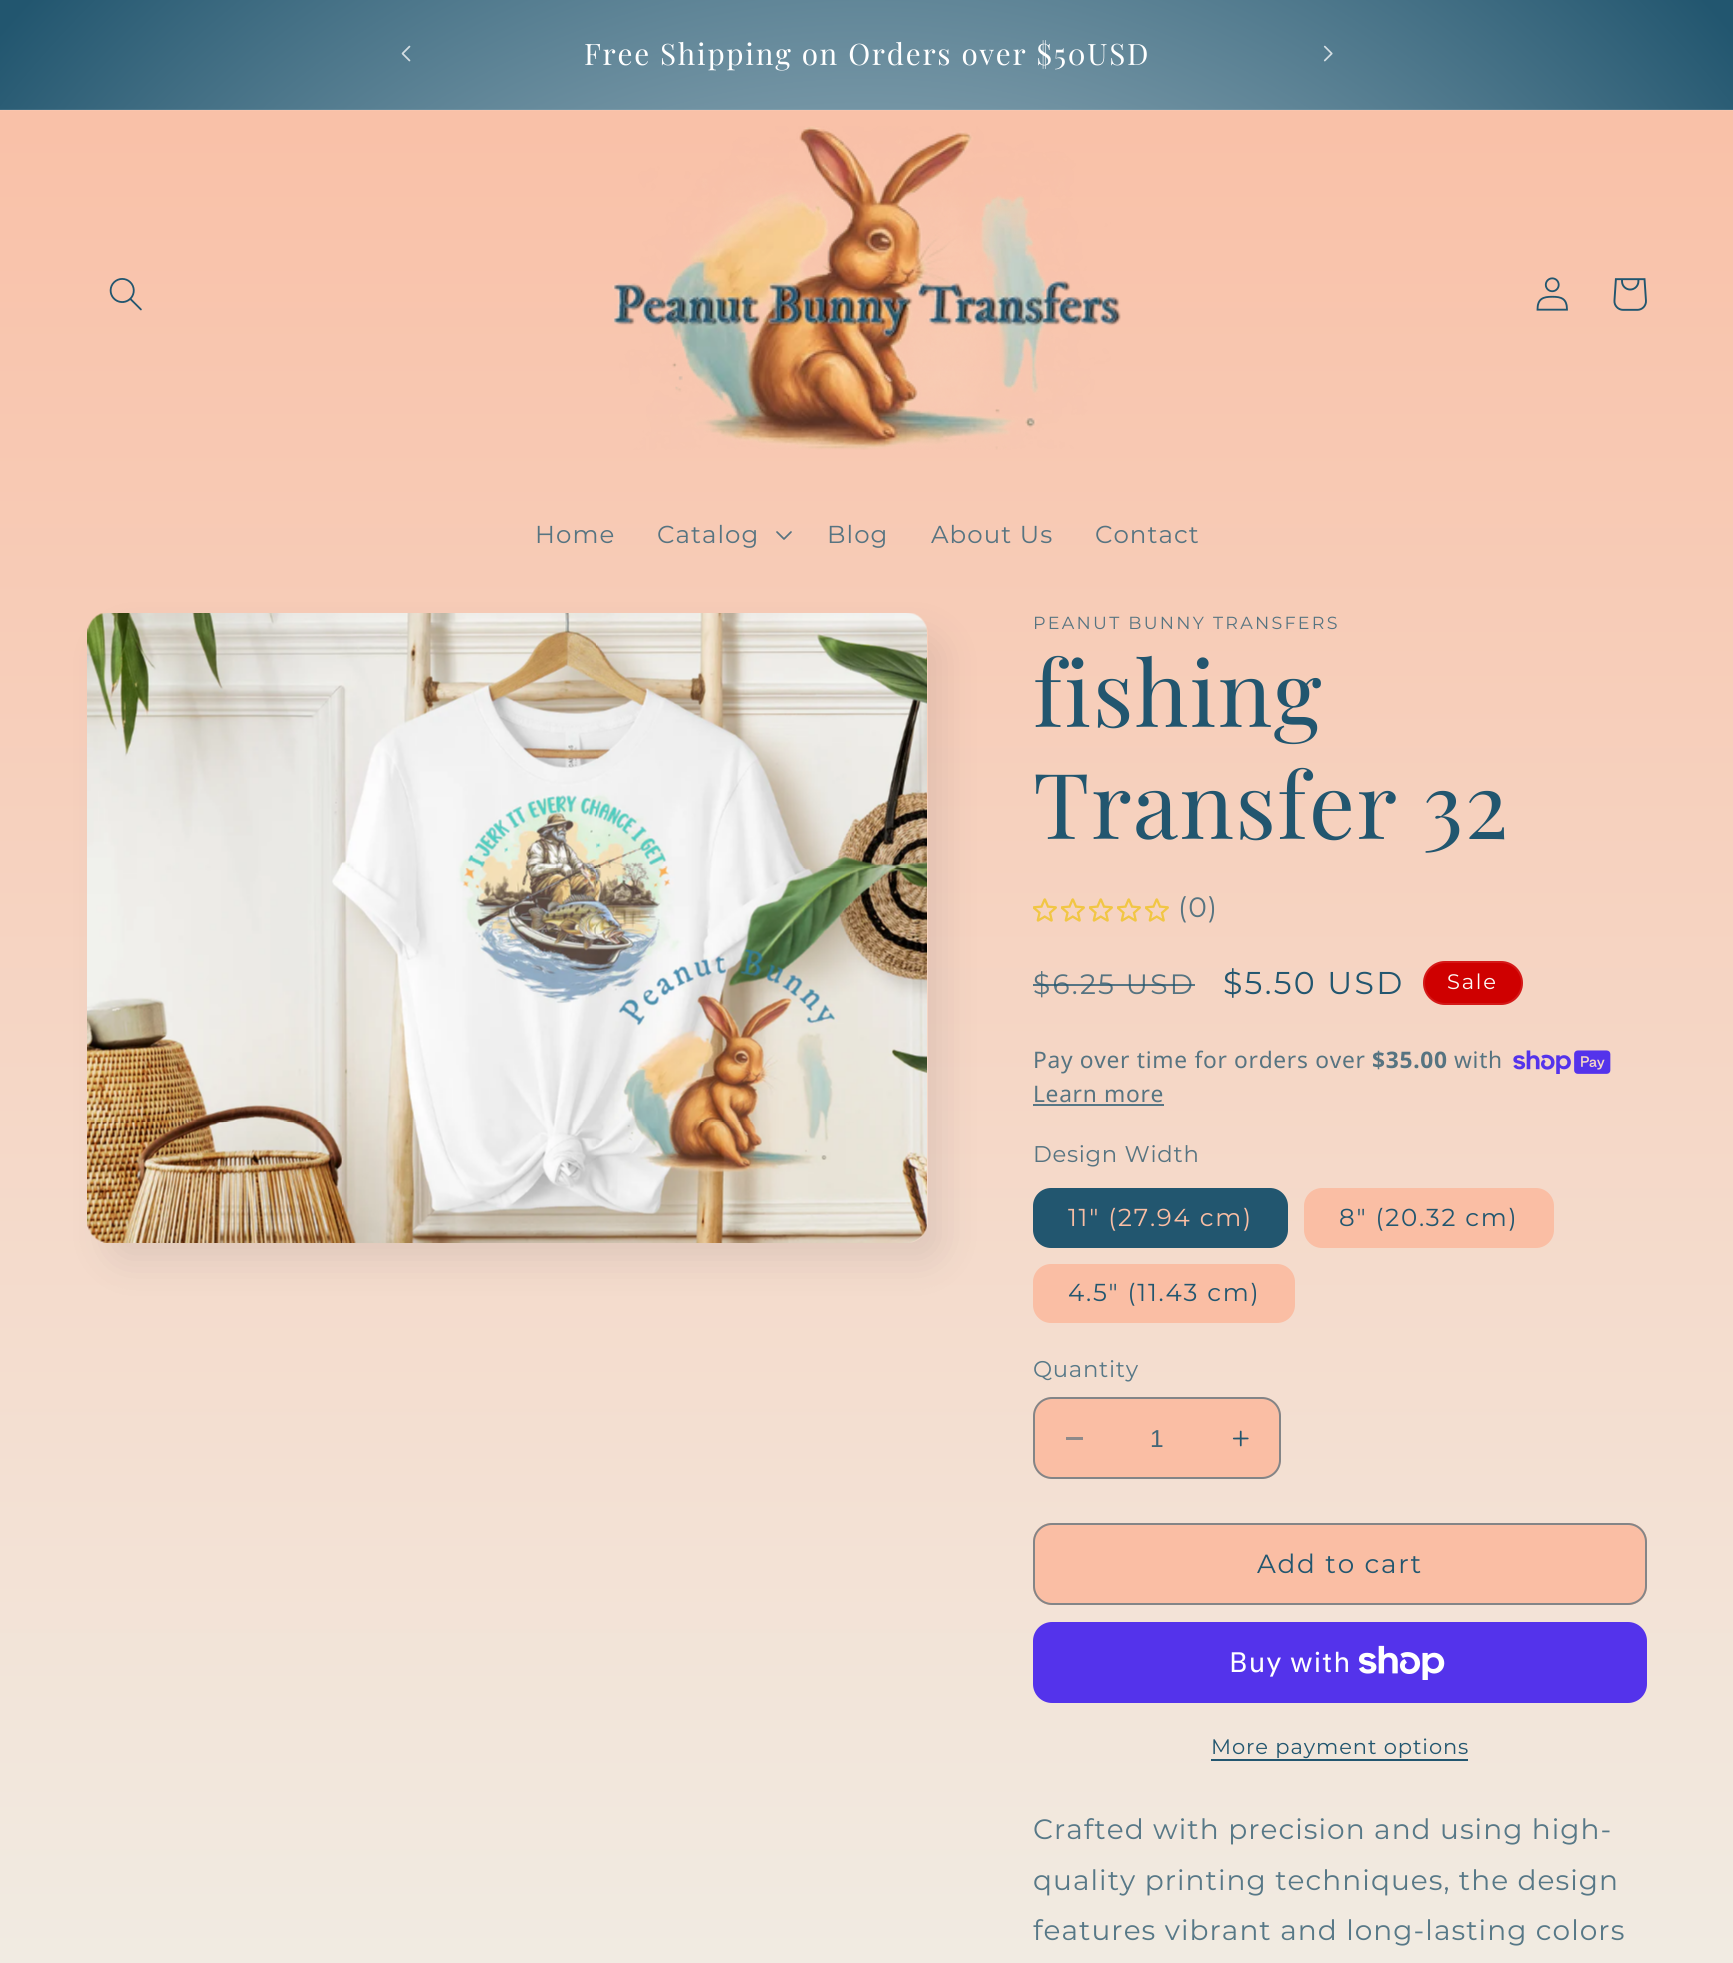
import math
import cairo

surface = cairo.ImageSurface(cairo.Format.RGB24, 1733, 1963)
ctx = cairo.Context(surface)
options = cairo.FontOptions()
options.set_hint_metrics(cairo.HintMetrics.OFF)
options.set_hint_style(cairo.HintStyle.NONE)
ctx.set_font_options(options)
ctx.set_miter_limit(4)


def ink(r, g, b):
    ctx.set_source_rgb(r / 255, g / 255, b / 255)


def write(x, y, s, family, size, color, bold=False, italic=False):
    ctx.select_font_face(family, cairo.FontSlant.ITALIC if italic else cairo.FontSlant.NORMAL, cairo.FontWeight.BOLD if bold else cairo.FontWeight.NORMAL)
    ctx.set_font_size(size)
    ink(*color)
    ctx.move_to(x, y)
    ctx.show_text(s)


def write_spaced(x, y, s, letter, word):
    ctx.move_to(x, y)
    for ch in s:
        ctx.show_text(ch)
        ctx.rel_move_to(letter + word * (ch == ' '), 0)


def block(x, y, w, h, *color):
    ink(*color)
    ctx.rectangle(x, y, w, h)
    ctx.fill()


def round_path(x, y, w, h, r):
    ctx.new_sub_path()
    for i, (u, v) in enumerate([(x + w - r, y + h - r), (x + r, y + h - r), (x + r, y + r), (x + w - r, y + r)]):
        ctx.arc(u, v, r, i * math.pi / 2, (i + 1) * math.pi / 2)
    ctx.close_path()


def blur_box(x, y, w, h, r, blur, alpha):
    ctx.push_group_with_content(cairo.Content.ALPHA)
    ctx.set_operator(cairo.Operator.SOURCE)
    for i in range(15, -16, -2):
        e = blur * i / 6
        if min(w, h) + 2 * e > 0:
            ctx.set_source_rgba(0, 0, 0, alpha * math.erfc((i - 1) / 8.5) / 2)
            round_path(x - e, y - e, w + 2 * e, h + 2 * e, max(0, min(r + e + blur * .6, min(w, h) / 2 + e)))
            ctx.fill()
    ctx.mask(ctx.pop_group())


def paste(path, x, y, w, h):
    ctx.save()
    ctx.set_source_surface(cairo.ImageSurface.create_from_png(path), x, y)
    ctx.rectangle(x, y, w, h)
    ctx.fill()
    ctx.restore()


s1 = dict(family="Liberation Sans", size=24.5, color=(66, 102, 119))

ink(255, 255, 255)
ctx.paint()
gradient = cairo.LinearGradient(867, 0, 867, 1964)
gradient.add_color_stop_rgba(0, 0.98, 0.745, 0.643, 1)
gradient.add_color_stop_rgba(1, 0.945, 0.922, 0.886, 1)
ctx.set_source(gradient)
ctx.rectangle(0, 111, 1733, 1852)
ctx.fill()
gradient = cairo.LinearGradient(867, 0, 867, 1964)
gradient.add_color_stop_rgba(0, 0.98, 0.765, 0.671, 1)
gradient.add_color_stop_rgba(1, 0.949, 0.929, 0.894, 1)
ctx.set_source(gradient)
ctx.rectangle(0, 110, 1733, 1)
ctx.fill()
gradient = cairo.RadialGradient(0, 0, 0, 0, 0, 1)
gradient.set_matrix(cairo.Matrix(1 / 1226, 0, 0, 1 / 1388, -1 * 867 / 1226, -1 * 982 / 1388))
gradient.add_color_stop_rgba(0.03, 1, 1, 1, 1)
gradient.add_color_stop_rgba(0.98, 0.133, 0.337, 0.435, 1)
ctx.set_source(gradient)
ctx.rectangle(0, 0, 1733, 109)
ctx.fill()
gradient = cairo.RadialGradient(0, 0, 0, 0, 0, 1)
gradient.set_matrix(cairo.Matrix(1 / 1226, 0, 0, 1 / 1388, -1 * 867 / 1226, -1 * 982 / 1388))
gradient.add_color_stop_rgba(0.03, 1, 1, 1, 1)
gradient.add_color_stop_rgba(0.98, 0.204, 0.392, 0.482, 1)
ctx.set_source(gradient)
ctx.rectangle(0, 109, 1733, 1)
ctx.fill()
paste("pic1.png", 401, 45, 10, 17)
ctx.select_font_face("Playfair Display")
ctx.set_font_size(29.6)
ink(255, 255, 255)
write_spaced(584, 65, "Free Shipping on Orders over $50USD", 1.75, 0)
paste("pic2.png", 1323, 45, 10, 17)
paste("pic3.png", 109, 278, 33, 33)
paste("pic4.png", 612, 126, 509, 324)
paste("pic5.png", 1536, 277, 32, 34)
paste("pic6.png", 1613, 278, 34, 33)
ctx.select_font_face("Montserrat")
ctx.set_font_size(24.5)
ink(87, 116, 129)
write_spaced(535, 543, "Home", 1.05, 0)
write_spaced(657, 543, "Catalog", 1.05, 0)
paste("pic7.png", 776, 531, 16, 9)
write_spaced(827, 543, "Blog", 1.05, 0)
write_spaced(931, 543, "About Us", 1.05, 0)
write_spaced(1095, 543, "Contact", 1.05, 0)
ink(46, 42, 57)
blur_box(105, 634, 840, 630, 21, 17.5, 0.1)
gradient = cairo.LinearGradient(867, 0, 867, 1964)
gradient.add_color_stop_rgba(0, 0.98, 0.745, 0.643, 1)
gradient.add_color_stop_rgba(1, 0.945, 0.922, 0.886, 1)
ctx.set_source(gradient)
round_path(88, 613, 840, 630, 21)
ctx.fill()
paste("pic8.png", 87, 613, 840, 630)
ctx.set_font_size(17.5)
ink(87, 116, 129)
write_spaced(1033, 629, "PEANUT BUNNY TRANSFERS", 2.25, 0)
ctx.select_font_face("Playfair Display")
ctx.set_font_size(91)
ink(34, 86, 111)
write_spaced(1033, 727, "fishing", 1.4, 0)
write_spaced(1033, 839, "Transfer 32", 1.4, 0)
paste("pic9.png", 1033, 898, 24, 24)
paste("pic9.png", 1061, 898, 24, 24)
paste("pic9.png", 1089, 898, 24, 24)
paste("pic9.png", 1117, 898, 24, 24)
paste("pic9.png", 1145, 898, 24, 24)
ctx.select_font_face("Montserrat")
ctx.set_font_size(28)
ink(87, 116, 129)
write_spaced(1178, 917, "(0)", 1.05, 0)
write_spaced(1033, 994, "$6.25 USD", 2.25, 0)
ctx.set_source_rgba(0.133, 0.337, 0.435, 0.75)
ctx.rectangle(1033, 984, 162, 2)
ctx.fill()
ctx.set_font_size(31.5)
ink(34, 86, 111)
write_spaced(1223, 994, "$5.50 USD", 2.25, 0)
ink(207, 0, 0)
round_path(1423, 961, 100, 44, 22)
ctx.fill()
round_path(1424, 962, 98, 42, 21)
ctx.set_source_rgba(0.992, 0.984, 0.969, 0.1)
ctx.stroke()
ctx.set_font_size(21)
ink(253, 251, 247)
write_spaced(1447, 989, "Sale", 1.75, 0)
ctx.select_font_face("Noto Sans")
ctx.set_font_size(22.75)
ink(87, 116, 129)
write_spaced(1033, 1068, "Pay over time for orders over", 0.7, 0)
ctx.select_font_face("Noto Sans", cairo.FontSlant.NORMAL, cairo.FontWeight.BOLD)
write_spaced(1372, 1068, "$35.00", 0.7, 0)
ctx.select_font_face("Noto Sans")
write_spaced(1454, 1068, "with", 0.7, 0)
paste("pic10.png", 1513, 1050, 98, 24)
write_spaced(1033, 1102, "Learn more", 0.7, 0)
block(1033, 1104, 131, 2, 87, 118, 133)
ctx.select_font_face("Montserrat")
ink(87, 116, 129)
write_spaced(1033, 1162, "Design Width", 0.7, 0)
ink(34, 86, 111)
round_path(1033, 1188, 255, 60, 18)
ctx.fill()
ctx.set_font_size(24.5)
ink(250, 190, 164)
write_spaced(1068, 1226, "11\" (27.94 cm)", 1.75, 0)
round_path(1304, 1188, 250, 60, 18)
ctx.fill()
ink(34, 86, 111)
write_spaced(1339, 1226, "8\" (20.32 cm)", 1.75, 0)
ink(250, 190, 164)
round_path(1033, 1264, 262, 59, 18)
ctx.fill()
ink(34, 86, 111)
write_spaced(1068, 1301, "4.5\" (11.43 cm)", 1.75, 0)
ctx.set_font_size(22.75)
ink(87, 120, 135)
write_spaced(1033, 1377, "Quantity", 0.7, 0)
ink(250, 190, 164)
round_path(1033, 1397, 248, 82, 19)
ctx.fill()
block(1066, 1437, 17, 3, 142, 138, 138)
paste("pic11.png", 1232, 1430, 17, 17)
round_path(1034, 1398, 246, 80, 18)
ctx.set_source_rgba(0.133, 0.337, 0.435, 0.55)
ctx.stroke()
write(1150, 1447, "1", **s1)
ink(250, 190, 164)
round_path(1033, 1523, 614, 82, 19)
ctx.fill()
round_path(1034, 1524, 612, 80, 18)
ctx.stroke()
round_path(1034, 1524, 612, 80, 18)
ctx.set_source_rgba(0.133, 0.337, 0.435, 0.55)
ctx.stroke()
ctx.select_font_face("Montserrat")
ctx.set_font_size(26.25)
ink(34, 86, 111)
write_spaced(1257, 1573, "Add to cart", 1.75, 0)
ink(84, 51, 235)
round_path(1033, 1622, 614, 81, 19)
ctx.fill()
ctx.select_font_face("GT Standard")
ctx.set_font_size(28)
ink(255, 255, 255)
write_spaced(1229, 1672, "Buy with", 1.05, 0)
paste("pic12.png", 1359, 1645, 86, 35)
ctx.select_font_face("Montserrat")
ctx.set_font_size(21)
ink(34, 86, 111)
write_spaced(1211, 1754, "More payment options", 0.9, 0)
block(1211, 1759, 257, 2, 34, 86, 111)
ctx.set_font_size(28)
ink(87, 120, 135)
write_spaced(1033, 1839, "Crafted with precision and using high-", 1.05, 0)
write_spaced(1033, 1890, "quality printing techniques, the design", 1.05, 0)
write_spaced(1033, 1940, "features vibrant and long-lasting colors", 1.05, 0)
surface.write_to_png("screenshot.png")
